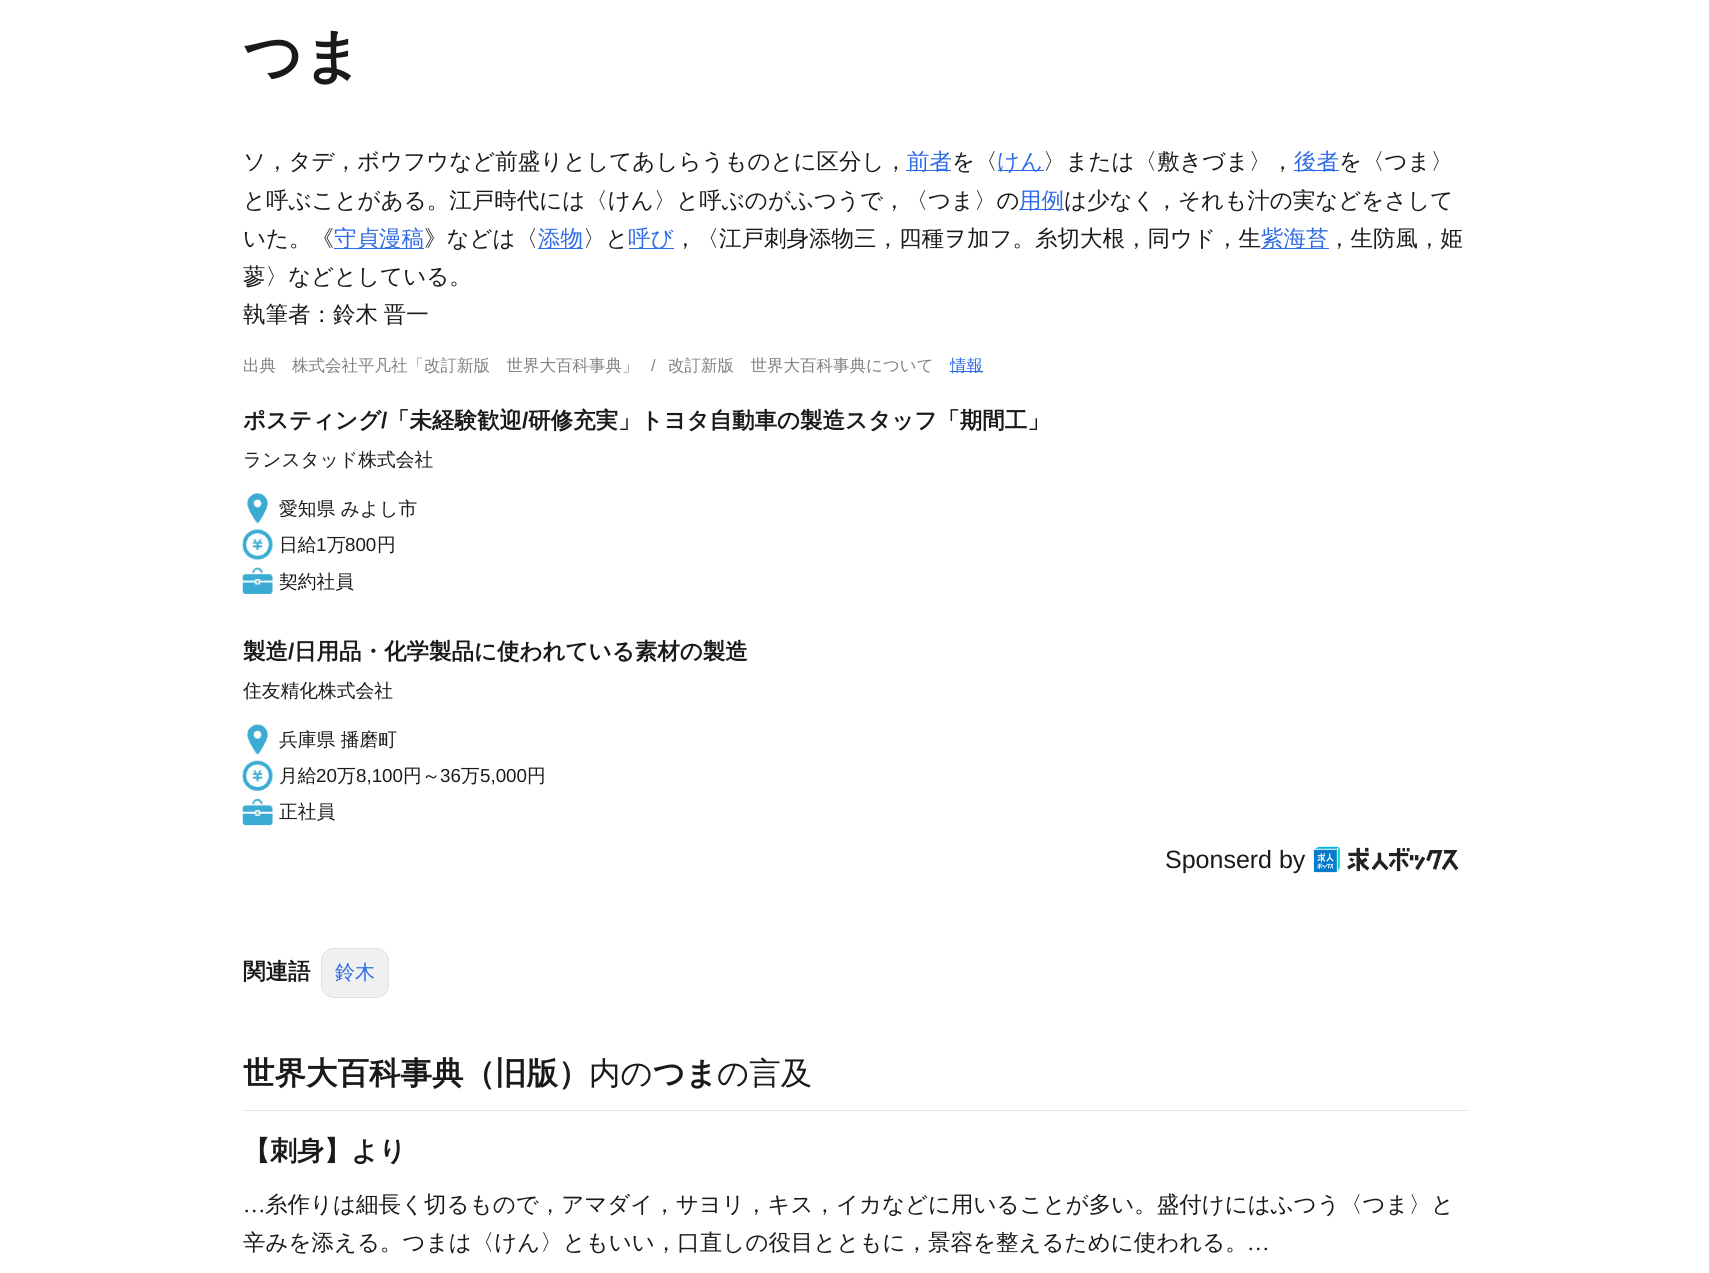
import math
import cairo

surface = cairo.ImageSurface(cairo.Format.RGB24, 1709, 1273)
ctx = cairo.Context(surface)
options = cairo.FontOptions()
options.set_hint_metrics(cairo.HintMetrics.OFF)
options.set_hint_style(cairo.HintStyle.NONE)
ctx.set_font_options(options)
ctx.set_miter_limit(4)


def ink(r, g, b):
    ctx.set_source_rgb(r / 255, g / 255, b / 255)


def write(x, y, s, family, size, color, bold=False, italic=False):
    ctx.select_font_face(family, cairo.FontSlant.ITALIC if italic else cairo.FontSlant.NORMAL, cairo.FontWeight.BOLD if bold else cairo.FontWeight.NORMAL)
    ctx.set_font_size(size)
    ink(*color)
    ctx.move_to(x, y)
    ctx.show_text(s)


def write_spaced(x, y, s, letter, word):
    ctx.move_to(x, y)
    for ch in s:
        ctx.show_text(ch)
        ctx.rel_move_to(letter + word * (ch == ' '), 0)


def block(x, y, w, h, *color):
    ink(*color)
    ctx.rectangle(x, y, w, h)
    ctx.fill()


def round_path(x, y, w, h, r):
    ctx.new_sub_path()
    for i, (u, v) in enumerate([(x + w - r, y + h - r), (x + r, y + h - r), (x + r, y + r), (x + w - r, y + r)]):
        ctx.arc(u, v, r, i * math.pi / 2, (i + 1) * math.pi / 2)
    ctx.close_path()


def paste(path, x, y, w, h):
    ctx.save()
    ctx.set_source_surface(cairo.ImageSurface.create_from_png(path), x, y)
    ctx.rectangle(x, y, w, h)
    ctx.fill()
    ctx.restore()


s1 = dict(family="WenQuanYi Zen Hei", size=58.5, color=(26, 26, 26), bold=True)
s2 = dict(family="WenQuanYi Zen Hei Medium", size=22.5, color=(26, 26, 26))
s3 = dict(family="WenQuanYi Zen Hei Medium", size=22.5, color=(47, 107, 230))
s4 = dict(family="WenQuanYi Zen Hei Medium", size=16.5, color=(128, 128, 128))
s5 = dict(family="Liberation Sans", size=16.5, color=(128, 128, 128))
s6 = dict(family="WenQuanYi Zen Hei Medium", size=16.5, color=(47, 107, 230))
s7 = dict(family="WenQuanYi Zen Hei", size=22.5, color=(26, 26, 26), bold=True)
s8 = dict(family="Liberation Sans", size=22.5, color=(26, 26, 26), bold=True)
s9 = dict(family="WenQuanYi Zen Hei Medium", size=18.75, color=(26, 26, 26))
s10 = dict(family="Liberation Sans", size=18.75, color=(26, 26, 26))
s11 = dict(family="Liberation Sans", size=25, color=(26, 26, 26))
s12 = dict(family="WenQuanYi Zen Hei Medium", size=20, color=(47, 107, 230))
s13 = dict(family="WenQuanYi Zen Hei", size=31.5, color=(26, 26, 26), bold=True)
s14 = dict(family="WenQuanYi Zen Hei Medium", size=31.5, color=(26, 26, 26))
s15 = dict(family="WenQuanYi Zen Hei", size=27, color=(26, 26, 26), bold=True)
s16 = dict(family="Liberation Serif", size=22.5, color=(26, 26, 26))

ink(255, 255, 255)
ctx.paint()
write(243, 76, "つま", **s1)
write(243, 169, "ソ，タデ，ボウフウなど前盛りとしてあしらうものとに区分し，", **s2)
block(906, 170, 45, 1, 47, 107, 230)
write(907, 169, "前者", **s3)
write(952, 169, "を〈", **s2)
block(998, 170, 46, 1, 47, 107, 230)
write(997, 169, "けん", **s3)
write(1043, 169, "〉または〈敷きづま〉，", **s2)
block(1294, 170, 45, 1, 47, 107, 230)
write(1294, 169, "後者", **s3)
write(1339, 169, "を〈つま〉", **s2)
write(243, 208, "と呼ぶことがある。江戸時代には〈けん〉と呼ぶのがふつうで，〈つま〉の", **s2)
block(1019, 209, 45, 1, 47, 107, 230)
write(1019, 208, "用例", **s3)
write(1064, 208, "は少なく，それも汁の実などをさして", **s2)
write(243, 246, "いた。《", **s2)
block(334, 248, 90, 1, 47, 107, 230)
write(334, 246, "守貞漫稿", **s3)
write(424, 246, "》などは〈", **s2)
block(538, 248, 45, 1, 47, 107, 230)
write(538, 246, "添物", **s3)
write(583, 246, "〉と", **s2)
block(629, 248, 45, 1, 47, 107, 230)
write(628, 246, "呼び", **s3)
write(674, 246, "，〈江戸刺身添物三，四種ヲ加フ。糸切大根，同ウド，生", **s2)
block(1261, 248, 68, 1, 47, 107, 230)
write(1261, 246, "紫海苔", **s3)
write(1328, 246, "，生防風，姫", **s2)
write(243, 284, "蓼〉などとしている。", **s2)
write(243, 322, "執筆者：", **s2)
write_spaced(333, 322, "鈴木 晋一", 0, -1)
write(243, 371, "出典", **s4)
write(292, 371, "株式会社平凡社「改訂新版　世界大百科事典」", **s4)
write(651, 371, "/", **s5)
write(668, 371, "改訂新版　世界大百科事典について", **s4)
block(950, 371, 33, 1, 47, 107, 230)
write(950, 371, "情報", **s6)
write(243, 428, "ポスティング", **s7)
write(381, 428, "/", **s8)
write(387, 428, "「未経験歓迎", **s7)
write(522, 428, "/", **s8)
write(528, 428, "研修充実」トヨタ自動車の製造スタッフ「期間工」", **s7)
write(243, 466, "ランスタッド株式会社", **s9)
paste("pic1.png", 247, 493, 21, 31)
write(279, 515, "愛知県 みよし市", **s9)
paste("pic2.png", 242, 529, 31, 31)
write(279, 551, "日給", **s9)
write(316, 551, "1", **s10)
write(327, 551, "万", **s9)
write(345, 551, "800", **s10)
write(377, 551, "円", **s9)
paste("pic3.png", 242, 567, 31, 27)
write(279, 588, "契約社員", **s9)
write(243, 659, "製造", **s7)
write(288, 659, "/", **s8)
write(294, 659, "日用品・化学製品に使われている素材の製造", **s7)
write(243, 697, "住友精化株式会社", **s9)
paste("pic4.png", 247, 724, 21, 31)
write(279, 746, "兵庫県 播磨町", **s9)
paste("pic5.png", 242, 760, 31, 31)
write(279, 782, "月給", **s9)
write(316, 782, "20", **s10)
write(337, 782, "万", **s9)
write(356, 782, "8,100", **s10)
write(403, 782, "円～", **s9)
write(440, 782, "36", **s10)
write(461, 782, "万", **s9)
write(480, 782, "5,000", **s10)
write(527, 782, "円", **s9)
paste("pic6.png", 242, 798, 31, 28)
write(279, 818, "正社員", **s9)
write(1165, 868, "Sponserd by", **s11)
paste("pic7.png", 1313, 846, 146, 27)
write(243, 979, "関連語", **s7)
ink(240, 240, 240)
round_path(321.5, 948.5, 67, 49, 12.5)
ctx.fill_preserve()
ink(224, 224, 224)
ctx.set_line_width(1)
ctx.stroke()
write(335, 979, "鈴木", **s12)
block(243, 1110, 1225, 1, 230, 230, 230)
write(243, 1084, "世界大百科事典（旧版）", **s13)
write(589, 1084, "内の", **s14)
write(653, 1084, "つま", **s13)
write(717, 1084, "の言及", **s14)
write(243, 1160, "【刺身】より", **s15)
write(243, 1212, "…", **s16)
write(265, 1212, "糸作りは細長く切るもので，アマダイ，サヨリ，キス，イカなどに用いることが多い。盛付けにはふつう〈つま〉と", **s2)
write(243, 1250, "辛みを添える。つまは〈けん〉ともいい，口直しの役目とともに，景容を整えるために使われる。", **s2)
write(1247, 1250, "…", **s16)
surface.write_to_png("screenshot.png")
